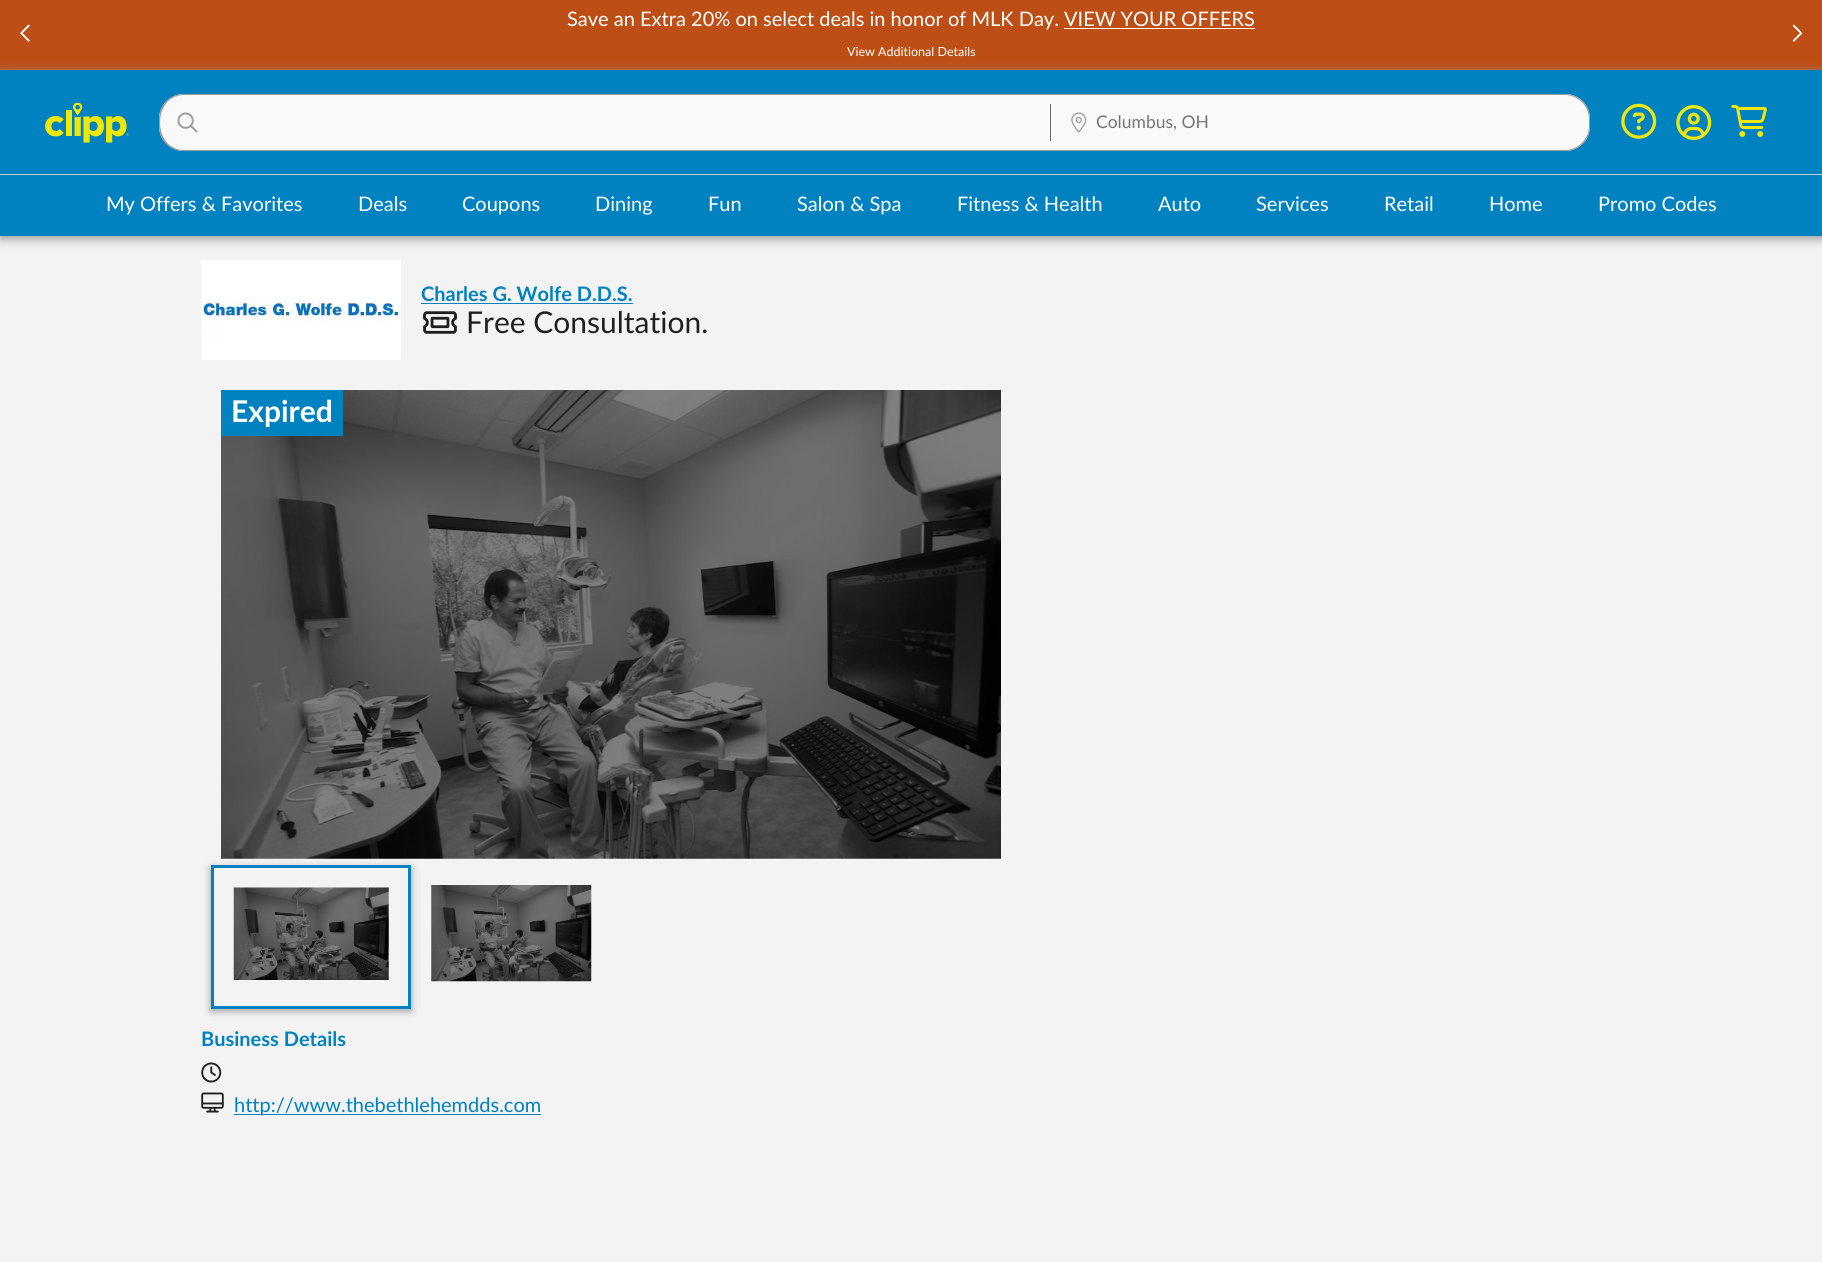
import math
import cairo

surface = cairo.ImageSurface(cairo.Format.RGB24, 1822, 1262)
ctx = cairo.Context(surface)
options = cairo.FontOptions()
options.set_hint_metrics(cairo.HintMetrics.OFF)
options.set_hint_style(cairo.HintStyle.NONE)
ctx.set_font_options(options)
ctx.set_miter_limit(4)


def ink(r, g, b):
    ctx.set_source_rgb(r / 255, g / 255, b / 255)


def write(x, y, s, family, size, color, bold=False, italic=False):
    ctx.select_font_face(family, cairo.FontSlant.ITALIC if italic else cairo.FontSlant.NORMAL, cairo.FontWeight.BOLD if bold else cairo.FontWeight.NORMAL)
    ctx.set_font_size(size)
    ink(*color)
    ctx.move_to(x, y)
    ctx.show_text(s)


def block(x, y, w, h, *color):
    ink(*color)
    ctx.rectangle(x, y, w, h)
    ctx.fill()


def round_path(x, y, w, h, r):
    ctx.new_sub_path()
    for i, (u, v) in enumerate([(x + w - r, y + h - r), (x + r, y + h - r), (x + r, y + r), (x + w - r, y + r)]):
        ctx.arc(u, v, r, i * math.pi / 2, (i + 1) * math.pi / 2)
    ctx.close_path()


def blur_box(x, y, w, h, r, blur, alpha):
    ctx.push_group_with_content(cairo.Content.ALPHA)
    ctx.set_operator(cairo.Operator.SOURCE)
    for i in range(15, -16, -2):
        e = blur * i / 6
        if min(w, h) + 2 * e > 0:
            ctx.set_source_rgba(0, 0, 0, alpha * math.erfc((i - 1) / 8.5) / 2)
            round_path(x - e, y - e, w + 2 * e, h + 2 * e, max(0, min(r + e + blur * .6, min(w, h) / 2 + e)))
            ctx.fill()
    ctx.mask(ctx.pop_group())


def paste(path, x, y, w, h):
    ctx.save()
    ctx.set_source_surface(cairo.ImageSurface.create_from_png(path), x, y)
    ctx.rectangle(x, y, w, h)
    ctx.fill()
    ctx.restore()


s1 = dict(family="Lato", size=20, color=(255, 255, 255))
s2 = dict(family="Lato", size=12.5, color=(255, 255, 255))
s3 = dict(family="Lato", size=17.5, color=(117, 117, 117))
s4 = dict(family="Lato", size=20, color=(0, 130, 192), bold=True)
s5 = dict(family="Lato", size=30, color=(31, 31, 31))
s6 = dict(family="Lato", size=30, color=(255, 255, 255), bold=True)
s7 = dict(family="Lato", size=20, color=(0, 130, 192))

ink(243, 243, 244)
ctx.paint()
block(0, 0, 1822, 70, 189, 79, 22)
paste("pic1.png", 20, 24, 10, 18)
write(567, 26, "Save an Extra 20% on select deals in honor of MLK Day. VIEW YOUR OFFERS", **s1)
block(1064, 28, 191, 1, 255, 255, 255)
write(847, 56, "View Additional Details", **s2)
paste("pic2.png", 1792, 24, 11, 18)
ink(154, 154, 154)
blur_box(0, 73, 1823, 166, 0, 5, 1)
block(0, 70, 1822, 104, 0, 130, 192)
block(0, 174, 1822, 1, 205, 205, 205)
paste("pic3.png", 45, 103, 84, 40)
ink(249, 249, 249)
ctx.new_path()
ctx.move_to(184, 94)
ctx.line_to(1051, 94)
ctx.line_to(1051, 151)
ctx.line_to(184, 151)
ctx.curve_to(170, 151, 159, 140, 159, 126)
ctx.line_to(159, 119)
ctx.curve_to(159, 105, 170, 94, 184, 94)
ctx.close_path()
ctx.fill()
ink(154, 154, 154)
ctx.set_fill_rule(cairo.FillRule.EVEN_ODD)
ctx.new_path()
ctx.move_to(184, 94)
ctx.line_to(1051, 94)
ctx.line_to(1051, 151)
ctx.line_to(184, 151)
ctx.curve_to(170, 151, 159, 140, 159, 126)
ctx.line_to(159, 119)
ctx.curve_to(159, 105, 170, 94, 184, 94)
ctx.close_path()
ctx.move_to(184, 95)
ctx.line_to(1051, 95)
ctx.line_to(1051, 150)
ctx.line_to(184, 150)
ctx.curve_to(152, 150, 152, 95, 184, 95)
ctx.close_path()
ctx.fill()
paste("pic4.png", 177, 112, 21, 21)
block(1050, 104, 1, 37, 103, 103, 103)
ink(249, 249, 249)
ctx.new_path()
ctx.move_to(1051, 94)
ctx.line_to(1565, 94)
ctx.curve_to(1579, 94, 1590, 105, 1590, 119)
ctx.line_to(1590, 126)
ctx.curve_to(1590, 140, 1579, 151, 1565, 151)
ctx.line_to(1051, 151)
ctx.close_path()
ctx.fill()
ink(154, 154, 154)
ctx.new_path()
ctx.move_to(1051, 94)
ctx.line_to(1565, 94)
ctx.curve_to(1579, 94, 1590, 105, 1590, 119)
ctx.line_to(1590, 126)
ctx.curve_to(1590, 140, 1579, 151, 1565, 151)
ctx.line_to(1051, 151)
ctx.close_path()
ctx.move_to(1051, 95)
ctx.line_to(1565, 95)
ctx.curve_to(1578, 95, 1589, 106, 1589, 119)
ctx.line_to(1589, 126)
ctx.curve_to(1589, 139, 1578, 150, 1565, 150)
ctx.line_to(1051, 150)
ctx.close_path()
ctx.fill()
paste("pic5.png", 1071, 112, 16, 21)
write(1096, 128, "Columbus, OH", **s3)
paste("pic6.png", 1621, 103, 36, 36)
paste("pic7.png", 1676, 105, 36, 35)
paste("pic8.png", 1731, 105, 36, 32)
block(0, 175, 1822, 61, 0, 130, 192)
write(106, 211, "My Offers & Favorites", **s1)
write(358, 211, "Deals", **s1)
write(462, 211, "Coupons", **s1)
write(595, 211, "Dining", **s1)
write(708, 211, "Fun", **s1)
write(797, 211, "Salon & Spa", **s1)
write(957, 211, "Fitness & Health", **s1)
write(1158, 211, "Auto", **s1)
write(1256, 211, "Services", **s1)
write(1384, 211, "Retail", **s1)
write(1489, 211, "Home", **s1)
write(1598, 211, "Promo Codes", **s1)
paste("pic9.png", 201, 260, 200, 100)
write(421, 301, "Charles G. Wolfe D.D.S.", **s4)
block(421, 303, 212, 1, 0, 130, 192)
paste("pic10.png", 423, 311, 34, 23)
write(466, 333, "Free Consultation.", **s5)
ctx.save()
ctx.new_path()
ctx.move_to(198, 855)
ctx.line_to(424, 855)
ctx.line_to(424, 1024)
ctx.line_to(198, 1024)
ctx.close_path()
ctx.move_to(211, 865)
ctx.line_to(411, 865)
ctx.line_to(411, 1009)
ctx.line_to(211, 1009)
ctx.close_path()
ctx.clip()
ink(154, 154, 154)
blur_box(211, 868, 200, 143, 0, 4, 1)
ctx.restore()
paste("pic11.png", 221, 390, 780, 469)
block(221, 390, 122, 46, 0, 130, 192)
write(231, 422, "Expired", **s6)
ctx.rectangle(212.5, 866.5, 197, 141)
ink(0, 130, 192)
ctx.set_line_width(3)
ctx.stroke()
paste("pic12.png", 233, 887, 156, 93)
paste("pic13.png", 431, 885, 161, 97)
write(201, 1046, "Business Details", **s4)
paste("pic14.png", 201, 1062, 21, 21)
paste("pic15.png", 201, 1092, 23, 21)
block(234, 1114, 307, 1, 0, 130, 192)
write(234, 1112, "http://www.thebethlehemdds.com", **s7)
surface.write_to_png("screenshot.png")
